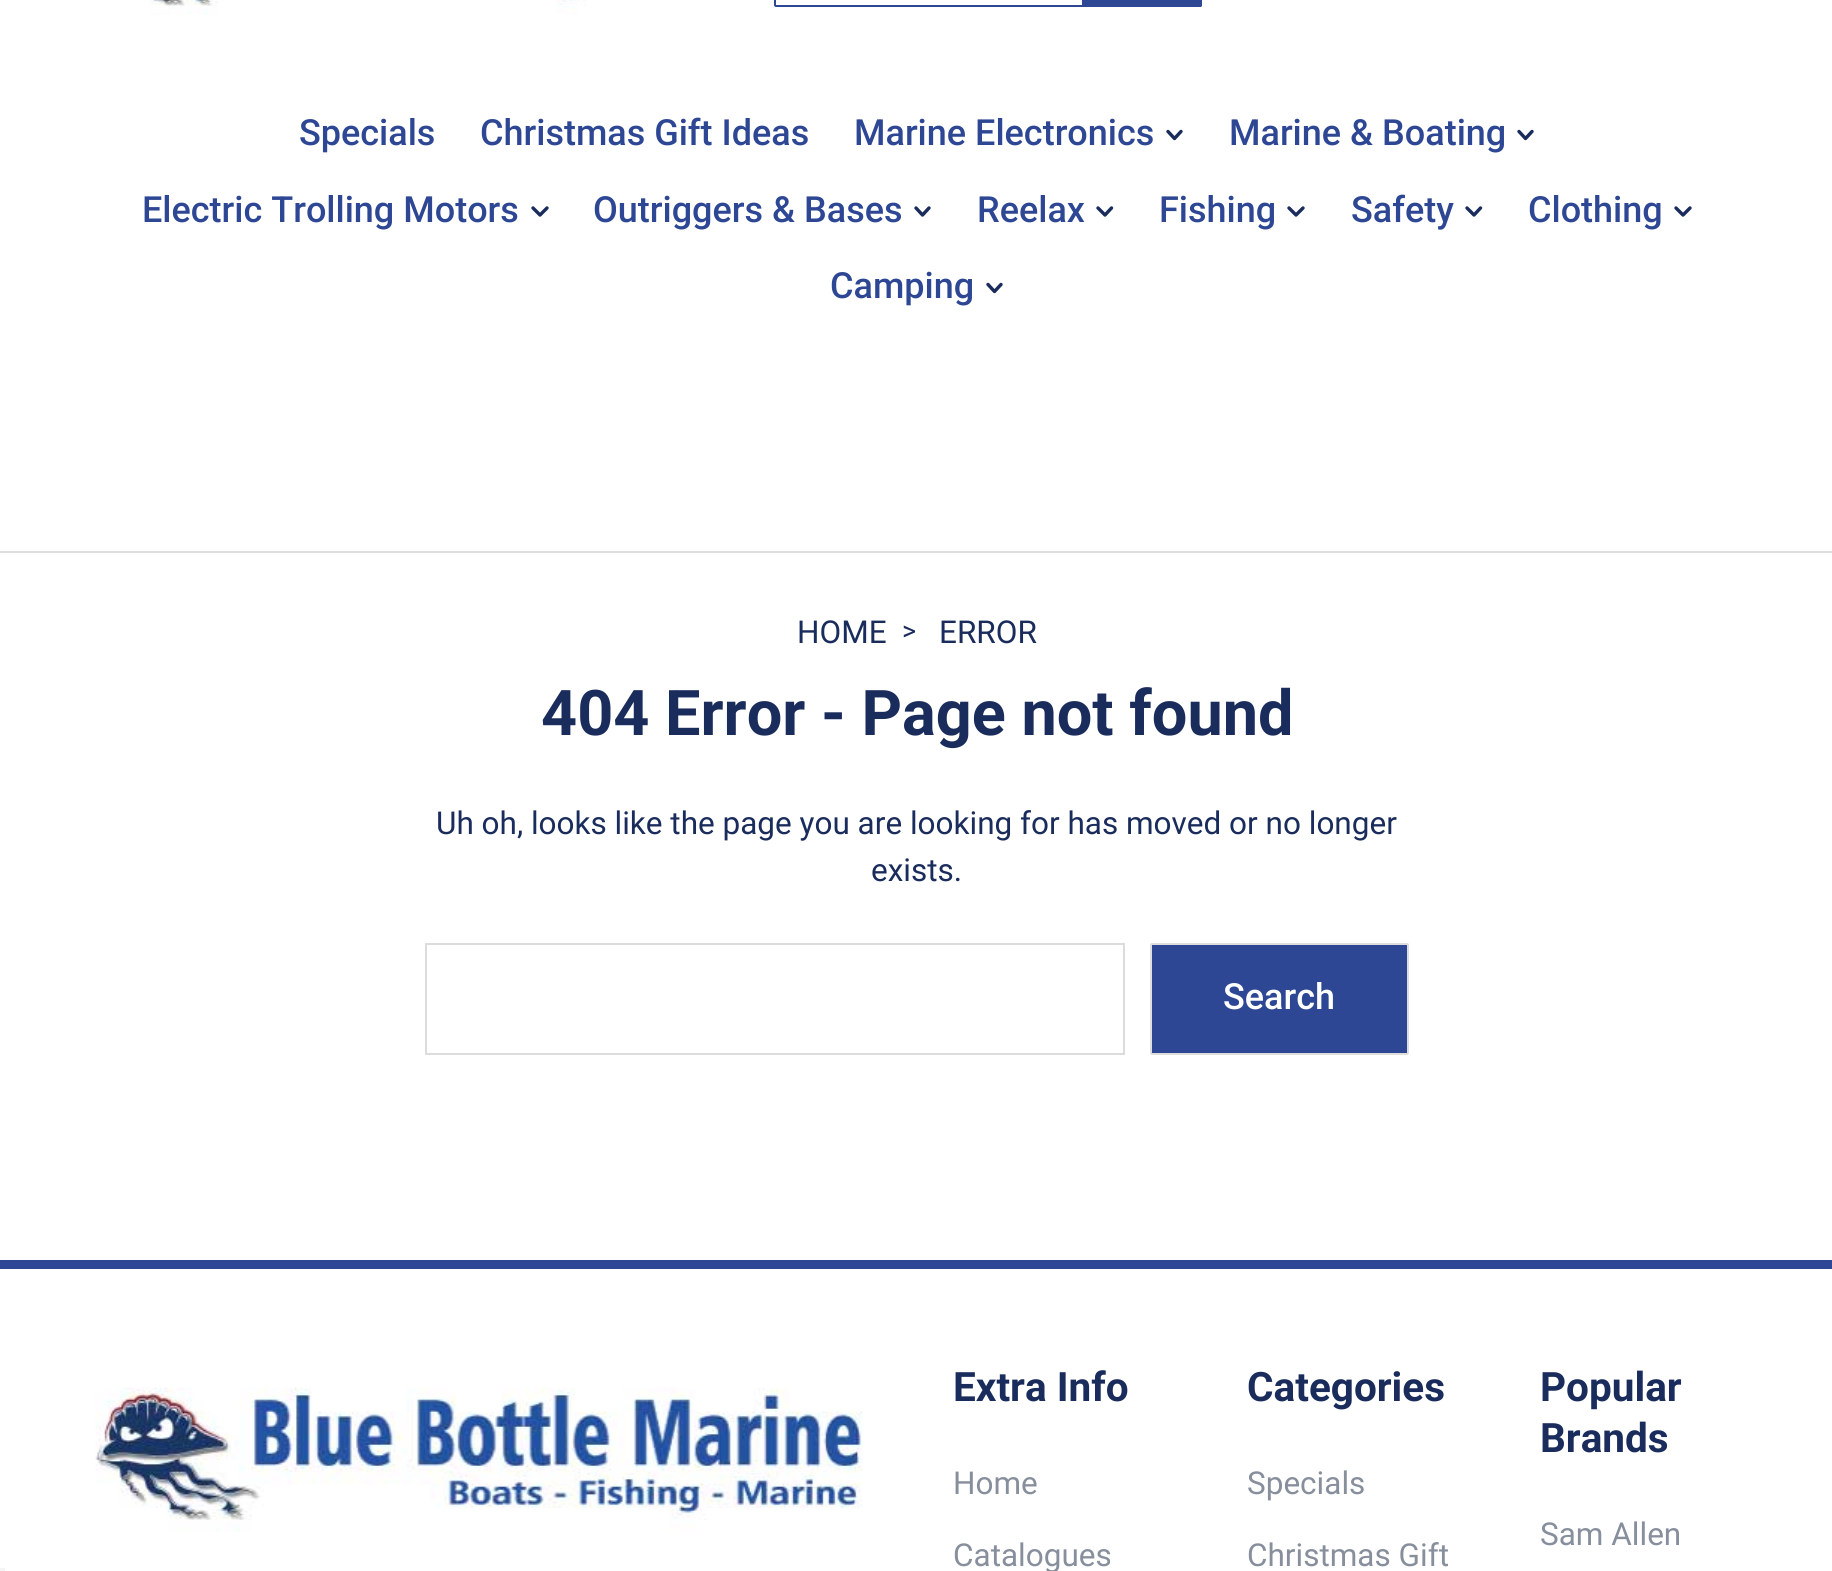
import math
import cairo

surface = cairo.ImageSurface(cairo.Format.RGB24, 1832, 1571)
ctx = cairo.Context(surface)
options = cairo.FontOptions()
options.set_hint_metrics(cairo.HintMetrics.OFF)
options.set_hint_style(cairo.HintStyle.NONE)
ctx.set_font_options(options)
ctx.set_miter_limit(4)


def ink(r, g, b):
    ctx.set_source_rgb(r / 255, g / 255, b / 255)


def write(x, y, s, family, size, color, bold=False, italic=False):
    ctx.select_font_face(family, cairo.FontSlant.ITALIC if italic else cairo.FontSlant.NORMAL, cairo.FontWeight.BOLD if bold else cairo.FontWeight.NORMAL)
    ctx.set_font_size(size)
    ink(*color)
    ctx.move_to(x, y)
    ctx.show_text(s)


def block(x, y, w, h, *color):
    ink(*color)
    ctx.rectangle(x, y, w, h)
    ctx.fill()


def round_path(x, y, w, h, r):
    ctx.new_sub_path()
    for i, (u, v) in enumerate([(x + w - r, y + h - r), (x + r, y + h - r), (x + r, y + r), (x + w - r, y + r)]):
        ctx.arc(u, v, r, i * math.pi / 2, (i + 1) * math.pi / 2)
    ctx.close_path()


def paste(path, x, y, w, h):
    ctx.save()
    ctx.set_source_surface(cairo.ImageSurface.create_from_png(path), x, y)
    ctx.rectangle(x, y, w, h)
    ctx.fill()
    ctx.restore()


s1 = dict(family="Roboto Medium", size=36, color=(46, 71, 148))
s2 = dict(family="Roboto", size=31.5, color=(26, 44, 92))
s3 = dict(family="Roboto", size=27, color=(26, 44, 92))
s4 = dict(family="Roboto", size=63, color=(26, 44, 92), bold=True)
s5 = dict(family="Roboto Medium", size=36, color=(255, 255, 255))
s6 = dict(family="Roboto", size=40.5, color=(26, 44, 92), bold=True)
s7 = dict(family="Roboto", size=31.5, color=(135, 142, 156))

ink(255, 255, 255)
ctx.paint()
paste("pic1.png", 150, 0, 436, 15)
round_path(775, -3, 426, 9, 1)
ink(46, 71, 148)
ctx.stroke()
ctx.new_path()
ctx.move_to(1082, -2)
ctx.line_to(1200, -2)
ctx.curve_to(1201, -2, 1202, -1, 1202, 0)
ctx.line_to(1202, 5)
ctx.curve_to(1202, 6, 1201, 7, 1200, 7)
ctx.line_to(1082, 7)
ctx.close_path()
ctx.fill()
block(0, 551, 1832, 2, 222, 222, 222)
write(299, 145, "Specials", **s1)
write(480, 145, "Christmas Gift Ideas", **s1)
write(854, 145, "Marine Electronics", **s1)
ctx.new_path()
ctx.move_to(1181, 131.5)
ctx.line_to(1174.5, 138.5)
ctx.line_to(1168, 131.5)
ink(26, 44, 92)
ctx.set_line_width(3.4)
ctx.set_line_cap(cairo.LineCap.ROUND)
ctx.set_line_join(cairo.LineJoin.ROUND)
ctx.stroke()
write(1229, 145, "Marine & Boating", **s1)
ctx.new_path()
ctx.move_to(1532, 131.5)
ctx.line_to(1525.5, 138.5)
ctx.line_to(1519, 131.5)
ink(26, 44, 92)
ctx.stroke()
write(142, 222, "Electric Trolling Motors", **s1)
ctx.new_path()
ctx.move_to(547, 208)
ctx.line_to(540, 215)
ctx.line_to(533, 208)
ink(26, 44, 92)
ctx.stroke()
write(593, 222, "Outriggers & Bases", **s1)
ctx.new_path()
ctx.move_to(929, 208)
ctx.line_to(922.5, 215)
ctx.line_to(916, 208)
ink(26, 44, 92)
ctx.stroke()
write(977, 222, "Reelax", **s1)
ctx.new_path()
ctx.move_to(1111.5, 208)
ctx.line_to(1105, 215)
ctx.line_to(1098, 208)
ink(26, 44, 92)
ctx.stroke()
write(1159, 222, "Fishing", **s1)
ctx.new_path()
ctx.move_to(1303, 208)
ctx.line_to(1296, 215)
ctx.line_to(1289, 208)
ink(26, 44, 92)
ctx.stroke()
write(1351, 222, "Safety", **s1)
ctx.new_path()
ctx.move_to(1480.5, 208)
ctx.line_to(1474, 215)
ctx.line_to(1467, 208)
ink(26, 44, 92)
ctx.stroke()
write(1528, 222, "Clothing", **s1)
ctx.new_path()
ctx.move_to(1690, 208)
ctx.line_to(1683, 215)
ctx.line_to(1676, 208)
ink(26, 44, 92)
ctx.stroke()
write(830, 298, "Camping", **s1)
ctx.new_path()
ctx.move_to(1001, 284.5)
ctx.line_to(994.5, 291.5)
ctx.line_to(988, 284.5)
ink(26, 44, 92)
ctx.stroke()
write(797, 643, "HOME", **s2)
write(902, 640, ">", **s3)
write(939, 643, "ERROR", **s2)
write(541, 735, "404 Error - Page not found", **s4)
write(436, 834, "Uh oh, looks like the page you are looking for has moved or no longer", **s2)
write(871, 881, "exists.", **s2)
ctx.rectangle(426, 944, 698, 110)
ink(220, 220, 220)
ctx.set_line_width(2)
ctx.set_line_cap(cairo.LineCap.BUTT)
ctx.set_line_join(cairo.LineJoin.MITER)
ctx.stroke()
ink(46, 71, 148)
round_path(1151, 944, 257, 110, 1)
ctx.fill_preserve()
ink(222, 222, 222)
ctx.stroke()
write(1223, 1009, "Search", **s5)
block(0, 1568, 5, 3, 245, 245, 245)
block(0, 1260, 1832, 9, 46, 71, 148)
paste("pic2.png", 95, 1387, 768, 145)
write(953, 1401, "Extra Info", **s6)
write(953, 1494, "Home", **s7)
write(953, 1566, "Catalogues", **s7)
write(1247, 1401, "Categories", **s6)
write(1247, 1494, "Specials", **s7)
write(1247, 1566, "Christmas Gift", **s7)
write(1540, 1401, "Popular", **s6)
write(1540, 1452, "Brands", **s6)
write(1540, 1545, "Sam Allen", **s7)
surface.write_to_png("screenshot.png")
